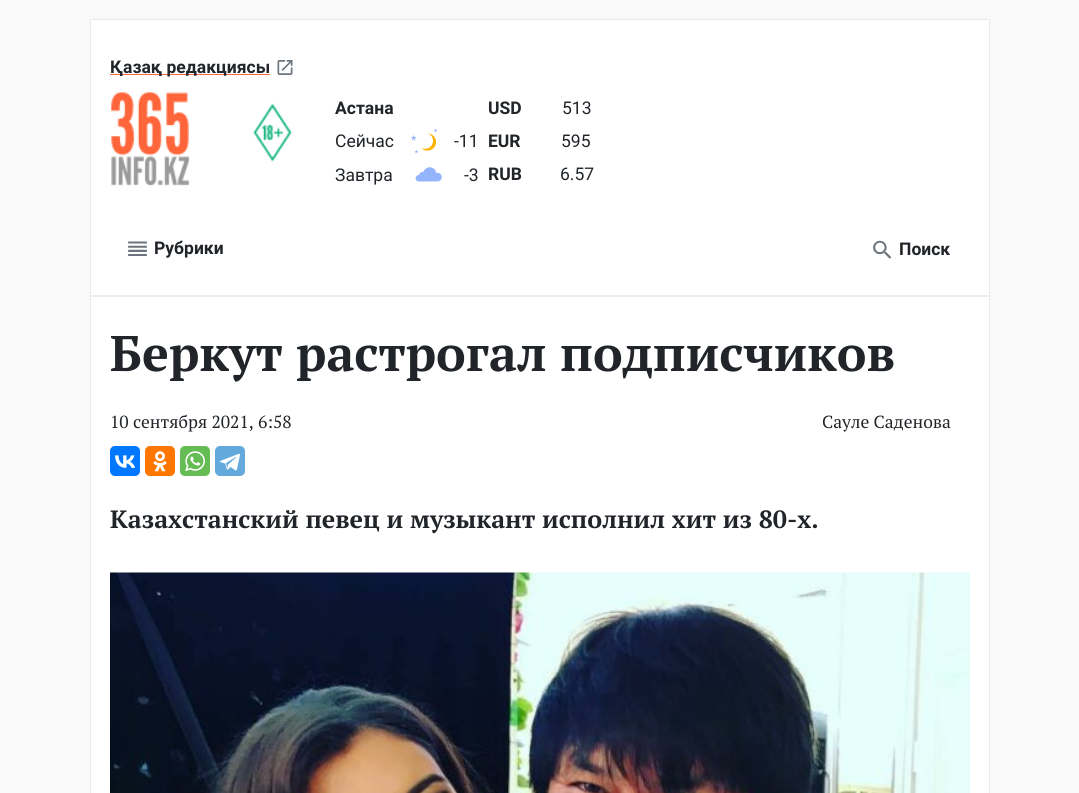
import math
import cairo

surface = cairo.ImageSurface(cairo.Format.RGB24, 1079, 793)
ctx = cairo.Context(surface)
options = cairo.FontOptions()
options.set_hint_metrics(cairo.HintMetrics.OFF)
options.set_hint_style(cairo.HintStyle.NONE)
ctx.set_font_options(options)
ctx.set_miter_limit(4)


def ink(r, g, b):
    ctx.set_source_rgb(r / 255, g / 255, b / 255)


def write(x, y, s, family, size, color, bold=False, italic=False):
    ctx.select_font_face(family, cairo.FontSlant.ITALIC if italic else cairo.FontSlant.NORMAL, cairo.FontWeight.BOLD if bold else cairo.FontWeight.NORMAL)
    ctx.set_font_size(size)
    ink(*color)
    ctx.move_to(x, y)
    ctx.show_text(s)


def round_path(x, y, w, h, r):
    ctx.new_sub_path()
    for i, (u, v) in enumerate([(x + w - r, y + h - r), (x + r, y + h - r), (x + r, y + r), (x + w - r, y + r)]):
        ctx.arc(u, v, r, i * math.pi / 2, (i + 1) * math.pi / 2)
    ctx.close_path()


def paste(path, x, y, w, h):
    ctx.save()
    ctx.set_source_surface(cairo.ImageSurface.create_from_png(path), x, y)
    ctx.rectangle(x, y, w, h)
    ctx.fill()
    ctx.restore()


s1 = dict(family="Roboto", size=17.5, color=(33, 37, 41), bold=True)
s2 = dict(family="Roboto", size=17.5, color=(33, 37, 41))
s3 = dict(family="PT Serif", size=50, color=(33, 37, 41), bold=True)
s4 = dict(family="PT Serif", size=17.5, color=(33, 37, 41))
s5 = dict(family="PT Serif", size=25, color=(33, 37, 41), bold=True)

ink(249, 249, 249)
ctx.paint()
ink(255, 255, 255)
ctx.rectangle(90.5, 19.5, 899, 276)
ctx.fill_preserve()
ink(233, 236, 239)
ctx.set_line_width(1)
ctx.stroke()
ink(255, 101, 59)
round_path(110, 74, 160, 1, 0.5)
ctx.fill()
write(110, 73, "Қазақ редакциясы", **s1)
paste("pic1.png", 277, 60, 16, 15)
paste("pic2.png", 110, 91, 80, 95)
paste("pic3.png", 253, 103, 39, 59)
write(335, 114, "Астана", **s1)
write(335, 147, "Сейчас", **s2)
paste("pic4.png", 411, 128, 27, 26)
write(454, 147, "-11", **s2)
write(335, 181, "Завтра", **s2)
paste("pic5.png", 415, 167, 27, 15)
write(464, 181, "-3", **s2)
write(488, 114, "USD", **s1)
write(562, 114, "513", **s2)
write(488, 147, "EUR", **s1)
write(561, 147, "595", **s2)
write(488, 180, "RUB", **s1)
write(560, 180, "6.57", **s2)
paste("pic6.png", 128, 241, 19, 15)
write(154, 254, "Рубрики", **s1)
paste("pic7.png", 873, 240, 19, 19)
write(899, 255, "Поиск", **s1)
ink(255, 255, 255)
ctx.rectangle(90.5, 296.5, 899, 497)
ctx.fill_preserve()
ink(233, 236, 239)
ctx.stroke()
write(110, 371, "Беркут растрогал подписчиков", **s3)
write(110, 428, "10 сентября 2021, 6:58", **s4)
write(822, 428, "Сауле Саденова", **s4)
ink(0, 119, 255)
round_path(110, 446, 30, 30, 5)
ctx.fill()
paste("pic8.png", 115, 455, 20, 13)
ink(255, 119, 0)
round_path(145, 446, 30, 30, 5)
ctx.fill()
paste("pic9.png", 153, 451, 14, 21)
ink(101, 188, 84)
round_path(180, 446, 30, 30, 5)
ctx.fill()
paste("pic10.png", 185, 451, 20, 21)
ink(100, 169, 220)
round_path(215, 446, 30, 30, 5)
ctx.fill()
paste("pic11.png", 220, 453, 20, 18)
write(110, 528, "Казахстанский певец и музыкант исполнил хит из 80-х.", **s5)
paste("pic12.png", 110, 572, 860, 221)
surface.write_to_png("screenshot.png")
